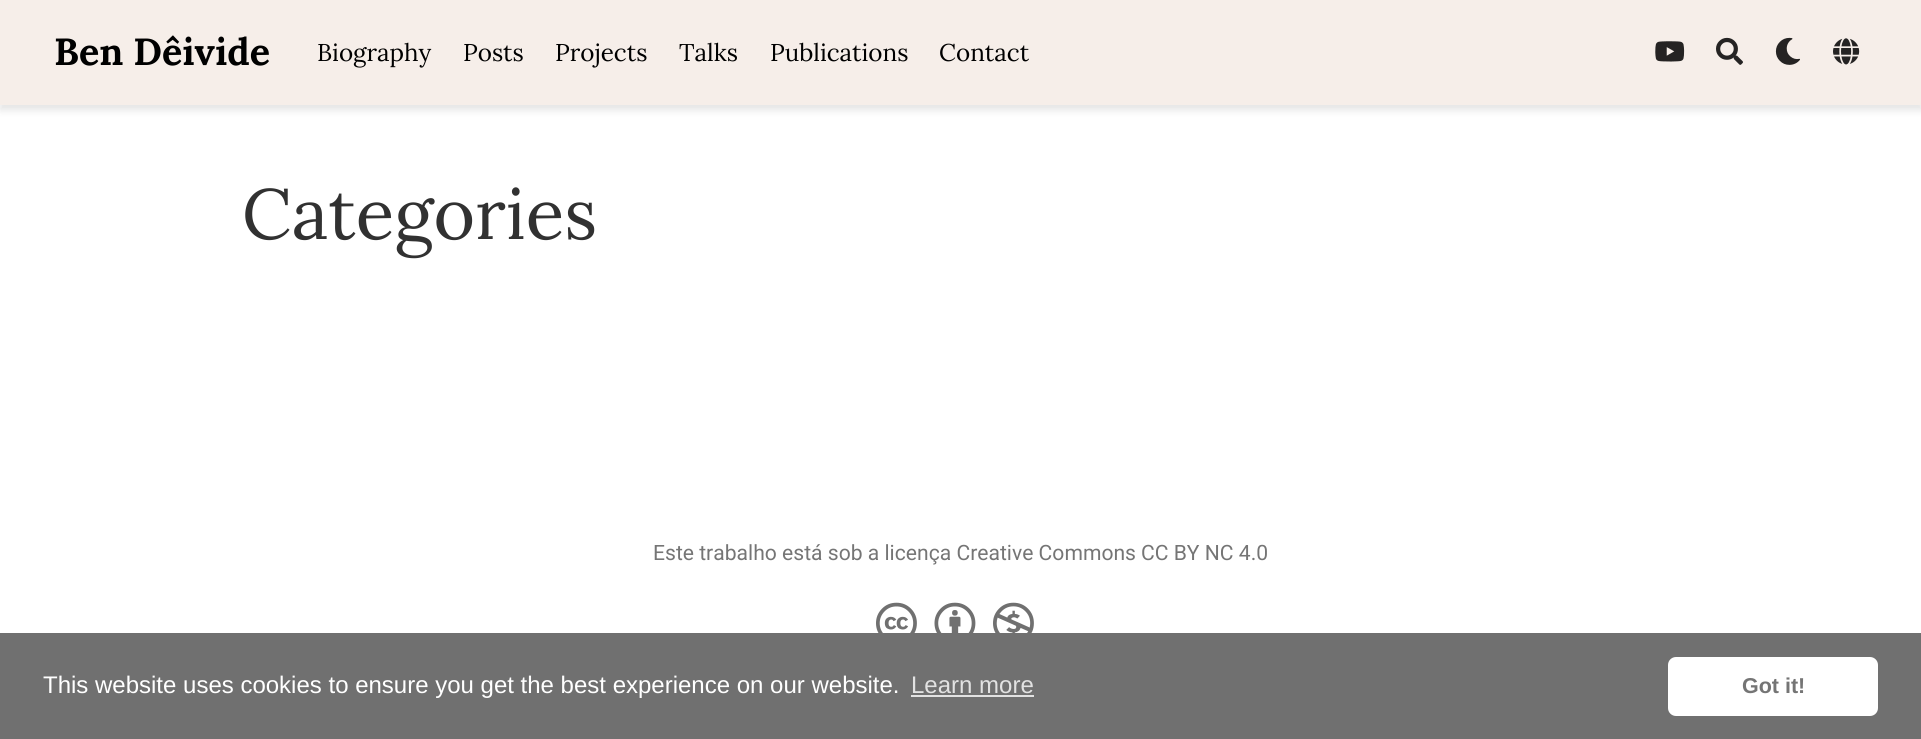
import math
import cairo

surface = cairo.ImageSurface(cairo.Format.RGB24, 1921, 739)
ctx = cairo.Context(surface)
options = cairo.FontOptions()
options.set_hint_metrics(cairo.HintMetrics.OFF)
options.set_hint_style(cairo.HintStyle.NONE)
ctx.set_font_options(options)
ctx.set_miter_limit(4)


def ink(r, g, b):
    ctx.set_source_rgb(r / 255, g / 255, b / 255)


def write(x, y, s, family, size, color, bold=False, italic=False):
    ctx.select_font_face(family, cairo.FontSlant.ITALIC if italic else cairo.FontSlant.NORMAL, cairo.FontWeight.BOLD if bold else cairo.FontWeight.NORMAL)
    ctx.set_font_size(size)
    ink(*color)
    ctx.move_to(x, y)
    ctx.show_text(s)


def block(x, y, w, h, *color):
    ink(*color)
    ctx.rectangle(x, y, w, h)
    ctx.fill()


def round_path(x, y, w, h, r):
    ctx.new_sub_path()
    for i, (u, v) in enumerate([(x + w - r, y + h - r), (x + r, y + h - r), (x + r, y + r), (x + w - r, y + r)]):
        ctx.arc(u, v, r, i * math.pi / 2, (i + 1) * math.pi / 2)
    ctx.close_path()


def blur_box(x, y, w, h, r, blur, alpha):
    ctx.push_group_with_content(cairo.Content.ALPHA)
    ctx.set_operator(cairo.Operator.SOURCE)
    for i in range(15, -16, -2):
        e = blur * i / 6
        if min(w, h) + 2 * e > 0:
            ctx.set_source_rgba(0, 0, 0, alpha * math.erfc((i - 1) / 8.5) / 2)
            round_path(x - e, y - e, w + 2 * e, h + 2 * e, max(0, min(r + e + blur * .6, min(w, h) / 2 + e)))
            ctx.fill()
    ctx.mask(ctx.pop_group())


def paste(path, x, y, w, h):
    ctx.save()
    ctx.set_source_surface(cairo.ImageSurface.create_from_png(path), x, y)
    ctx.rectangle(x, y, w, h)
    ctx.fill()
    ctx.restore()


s1 = dict(family="Lora", size=37.75, color=(0, 0, 0), bold=True)
s2 = dict(family="Lora", size=24.25, color=(0, 0, 0))
s3 = dict(family="Lora", size=71, color=(49, 49, 49))
s4 = dict(family="Roboto", size=21.1, color=(117, 117, 117))
s5 = dict(family="Liberation Sans", size=24, color=(255, 255, 255))
s6 = dict(family="Liberation Sans", size=24, color=(226, 226, 226))
s7 = dict(family="Liberation Sans", size=21.5, color=(117, 117, 117), bold=True)

ink(255, 255, 255)
ctx.paint()
ink(0, 0, 0)
blur_box(0, 5, 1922, 105, 0, 4, 0.11)
block(0, 0, 1921, 105, 246, 238, 233)
write(54, 65, "Ben Dêivide", **s1)
write(317, 61, "Biography", **s2)
write(463, 61, "Posts", **s2)
write(555, 61, "Projects", **s2)
write(679, 61, "Talks", **s2)
write(770, 61, "Publications", **s2)
write(939, 61, "Contact", **s2)
paste("pic1.png", 1655, 41, 30, 21)
paste("pic2.png", 1716, 37, 27, 28)
paste("pic3.png", 1775, 37, 25, 28)
paste("pic4.png", 1833, 38, 27, 27)
write(242, 239, "Categories", **s3)
write(653, 560, "Este trabalho está sob a licença Creative Commons", **s4)
write(1141, 560, "CC BY NC 4.0", **s4)
paste("pic5.png", 876, 602, 41, 31)
paste("pic6.png", 934, 602, 42, 31)
paste("pic7.png", 993, 602, 41, 31)
block(0, 633, 1921, 106, 112, 112, 112)
write(43, 693, "This website uses cookies to ensure you get the best experience on our website.", **s5)
write(911, 693, "Learn more", **s6)
block(911, 695, 123, 2, 226, 226, 226)
ink(255, 255, 255)
round_path(1668, 657, 210, 59, 8)
ctx.fill()
write(1742, 693, "Got it!", **s7)
surface.write_to_png("screenshot.png")
